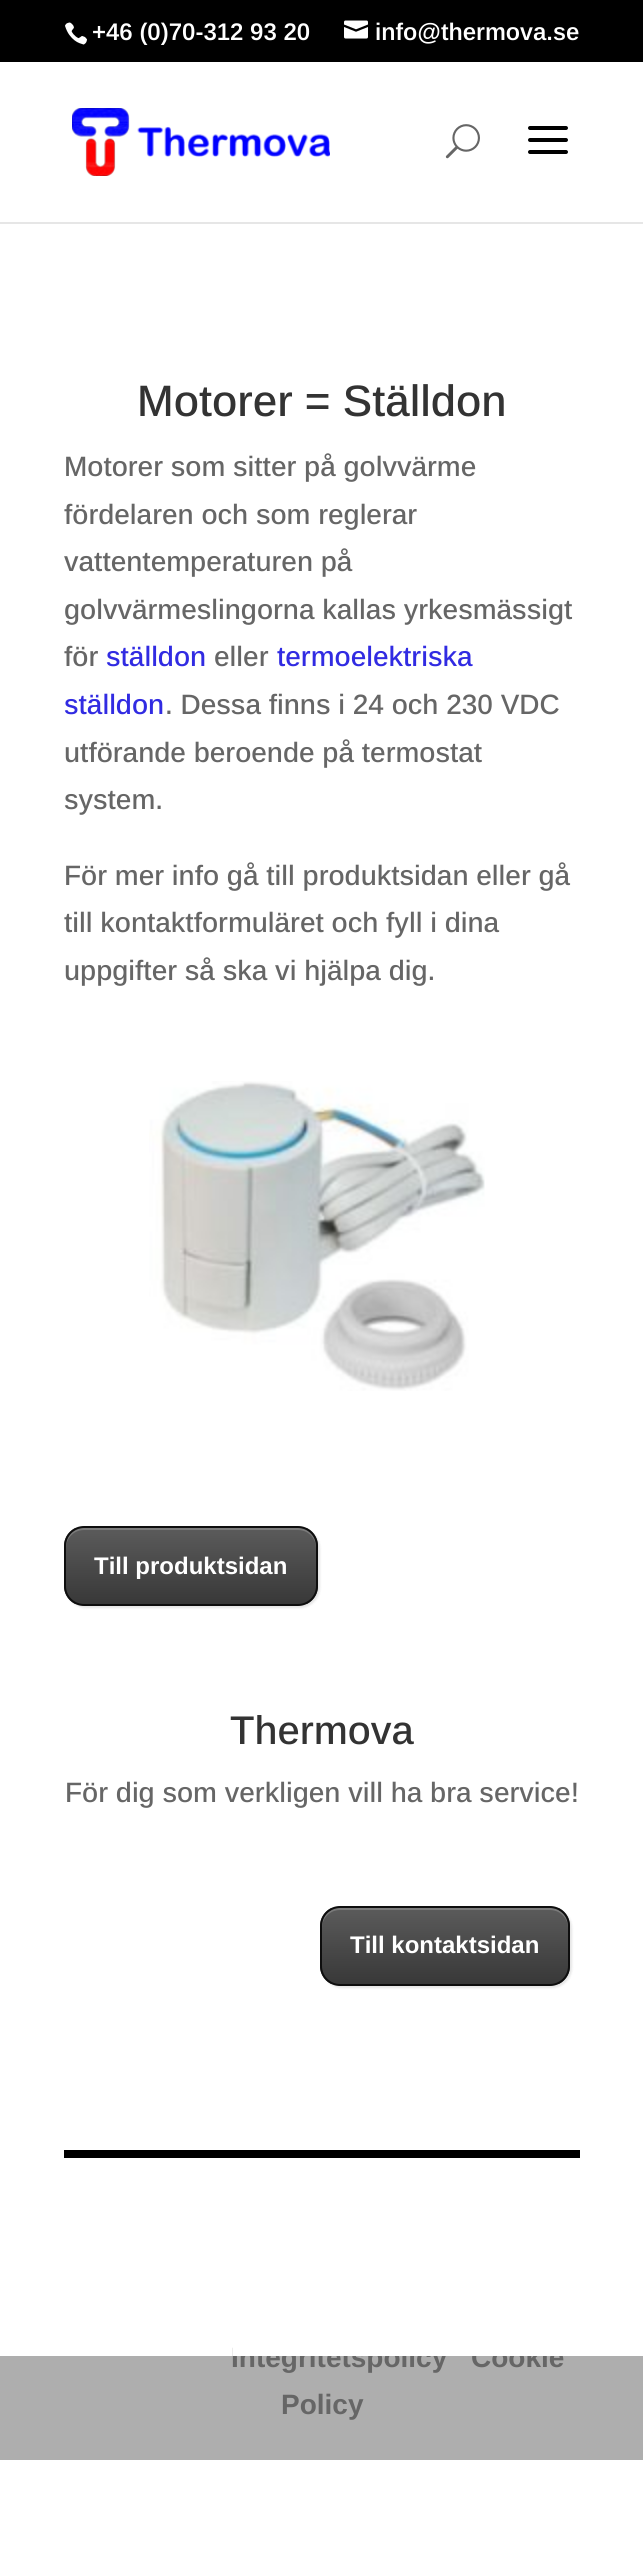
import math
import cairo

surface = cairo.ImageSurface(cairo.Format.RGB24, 643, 2572)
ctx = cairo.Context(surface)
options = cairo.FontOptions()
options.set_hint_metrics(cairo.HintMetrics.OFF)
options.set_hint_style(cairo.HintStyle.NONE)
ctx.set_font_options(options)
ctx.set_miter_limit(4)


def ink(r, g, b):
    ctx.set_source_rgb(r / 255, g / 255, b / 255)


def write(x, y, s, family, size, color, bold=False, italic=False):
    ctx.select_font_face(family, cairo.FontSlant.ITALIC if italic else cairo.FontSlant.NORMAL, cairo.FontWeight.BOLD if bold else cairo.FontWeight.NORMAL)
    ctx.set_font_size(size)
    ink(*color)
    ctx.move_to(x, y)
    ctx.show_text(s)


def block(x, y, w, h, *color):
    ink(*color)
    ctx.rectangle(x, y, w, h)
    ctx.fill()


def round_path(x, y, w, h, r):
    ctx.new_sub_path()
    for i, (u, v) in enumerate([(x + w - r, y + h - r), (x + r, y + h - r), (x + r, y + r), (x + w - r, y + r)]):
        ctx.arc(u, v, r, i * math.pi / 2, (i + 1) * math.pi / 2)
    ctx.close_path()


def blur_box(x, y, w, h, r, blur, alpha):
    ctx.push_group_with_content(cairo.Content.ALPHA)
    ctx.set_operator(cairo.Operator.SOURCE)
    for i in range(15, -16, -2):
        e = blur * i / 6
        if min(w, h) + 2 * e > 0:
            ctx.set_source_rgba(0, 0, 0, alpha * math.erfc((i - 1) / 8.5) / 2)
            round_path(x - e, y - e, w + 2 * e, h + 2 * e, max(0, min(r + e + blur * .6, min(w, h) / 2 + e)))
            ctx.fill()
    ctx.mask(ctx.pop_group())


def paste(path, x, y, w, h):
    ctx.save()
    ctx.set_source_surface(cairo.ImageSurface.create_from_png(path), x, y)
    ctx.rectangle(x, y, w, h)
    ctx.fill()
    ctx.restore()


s1 = dict(family="Arimo SemiBold", size=24, color=(255, 255, 255))
s2 = dict(family="Arimo", size=28, color=(102, 102, 102), bold=True)
s3 = dict(family="Arimo Medium", size=44, color=(51, 51, 51))
s4 = dict(family="Arimo Medium", size=28, color=(102, 102, 102))
s5 = dict(family="Arimo Medium", size=28, color=(49, 43, 226))
s6 = dict(family="Arimo", size=24, color=(255, 255, 255), bold=True)
s7 = dict(family="Arimo Medium", size=40, color=(51, 51, 51))

ink(255, 255, 255)
ctx.paint()
block(0, 0, 643, 62, 0, 0, 0)
paste("pic1.png", 65, 22, 22, 23)
write(92, 40, "+46 (0)70-312 93 20", **s1)
paste("pic2.png", 344, 20, 24, 19)
write(375, 40, "info@thermova.se", **s1)
block(0, 222, 643, 2, 230, 230, 230)
paste("pic3.png", 72, 108, 258, 68)
paste("pic4.png", 445, 124, 35, 35)
paste("pic5.png", 528, 126, 40, 28)
block(0, 2356, 643, 104, 174, 174, 174)
write(231, 2367, "Integritetspolicy", **s2)
write(471, 2367, "Cookie", **s2)
block(233, 2346, 330, 10, 255, 255, 255)
write(137, 416, "Motorer = Ställdon", **s3)
write(64, 476, "Motorer som sitter på golvvärme", **s4)
write(64, 524, "fördelaren och som reglerar", **s4)
write(64, 571, "vattentemperaturen på", **s4)
write(64, 619, "golvvärmeslingorna kallas yrkesmässigt", **s4)
write(64, 666, "för", **s4)
write(106, 666, "ställdon", **s5)
write(214, 666, "eller", **s4)
write(277, 666, "termoelektriska", **s5)
write(64, 714, "ställdon", **s5)
write(165, 714, ". Dessa finns i 24 och 230 VDC", **s4)
write(64, 762, "utförande beroende på termostat", **s4)
write(64, 809, "system.", **s4)
write(64, 885, "För mer info gå till produktsidan eller gå", **s4)
write(64, 932, "till kontaktformuläret och fyll i dina", **s4)
write(64, 980, "uppgifter så ska vi hjälpa dig.", **s4)
paste("pic6.png", 149, 1081, 336, 310)
ink(0, 0, 0)
blur_box(66, 1528, 254, 80, 20, 1, 0.1)
ctx.save()
round_path(64, 1526, 254, 80, 20)
ctx.clip()
gradient = cairo.LinearGradient(191, 1528, 191, 1604)
gradient.add_color_stop_rgba(0, 0.357, 0.357, 0.357, 1)
gradient.add_color_stop_rgba(1, 0.22, 0.22, 0.22, 1)
ctx.set_source(gradient)
ctx.rectangle(64, 1528, 254, 76)
ctx.fill()
ctx.restore()
ctx.set_source_rgba(1, 1, 1, 0.2)
ctx.new_path()
ctx.move_to(84, 1530)
ctx.line_to(298, 1530)
ctx.curve_to(308, 1530, 316, 1538, 316, 1548)
ctx.line_to(316, 1546)
ctx.curve_to(316, 1536, 308, 1528, 298, 1528)
ctx.line_to(84, 1528)
ctx.curve_to(74, 1528, 66, 1536, 66, 1546)
ctx.line_to(66, 1548)
ctx.curve_to(66, 1538, 74, 1530, 84, 1530)
ctx.close_path()
ctx.fill()
round_path(65, 1527, 252, 78, 19)
ink(14, 14, 14)
ctx.stroke()
write(94, 1574, "Till produktsidan", **s6)
write(230, 1744, "Thermova", **s7)
write(65, 1802, "För dig som verkligen vill ha bra service!", **s4)
ink(0, 0, 0)
blur_box(322, 1908, 250, 80, 20, 1, 0.1)
ctx.save()
round_path(320, 1906, 250, 80, 20)
ctx.clip()
gradient = cairo.LinearGradient(445, 1908, 445, 1984)
gradient.add_color_stop_rgba(0, 0.357, 0.357, 0.357, 1)
gradient.add_color_stop_rgba(1, 0.22, 0.22, 0.22, 1)
ctx.set_source(gradient)
ctx.rectangle(320, 1908, 250, 76)
ctx.fill()
ctx.restore()
ctx.set_source_rgba(1, 1, 1, 0.2)
ctx.new_path()
ctx.move_to(340, 1910)
ctx.line_to(550, 1910)
ctx.curve_to(560, 1910, 568, 1918, 568, 1928)
ctx.line_to(568, 1926)
ctx.curve_to(568, 1916, 560, 1908, 550, 1908)
ctx.line_to(340, 1908)
ctx.curve_to(330, 1908, 322, 1916, 322, 1926)
ctx.line_to(322, 1928)
ctx.curve_to(322, 1918, 330, 1910, 340, 1910)
ctx.close_path()
ctx.fill()
round_path(321, 1907, 248, 78, 19)
ink(14, 14, 14)
ctx.stroke()
write(350, 1953, "Till kontaktsidan", **s6)
block(64, 2150, 516, 8, 0, 0, 0)
write(281, 2414, "Policy", **s2)
surface.write_to_png("screenshot.png")
